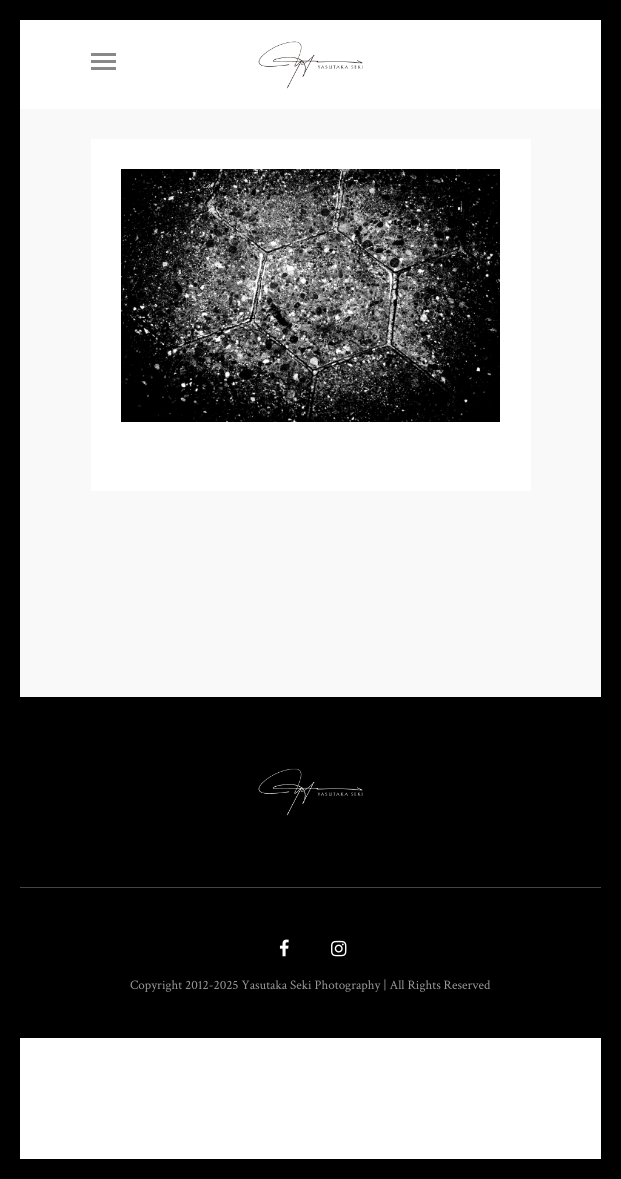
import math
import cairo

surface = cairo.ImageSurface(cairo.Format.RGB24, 621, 1179)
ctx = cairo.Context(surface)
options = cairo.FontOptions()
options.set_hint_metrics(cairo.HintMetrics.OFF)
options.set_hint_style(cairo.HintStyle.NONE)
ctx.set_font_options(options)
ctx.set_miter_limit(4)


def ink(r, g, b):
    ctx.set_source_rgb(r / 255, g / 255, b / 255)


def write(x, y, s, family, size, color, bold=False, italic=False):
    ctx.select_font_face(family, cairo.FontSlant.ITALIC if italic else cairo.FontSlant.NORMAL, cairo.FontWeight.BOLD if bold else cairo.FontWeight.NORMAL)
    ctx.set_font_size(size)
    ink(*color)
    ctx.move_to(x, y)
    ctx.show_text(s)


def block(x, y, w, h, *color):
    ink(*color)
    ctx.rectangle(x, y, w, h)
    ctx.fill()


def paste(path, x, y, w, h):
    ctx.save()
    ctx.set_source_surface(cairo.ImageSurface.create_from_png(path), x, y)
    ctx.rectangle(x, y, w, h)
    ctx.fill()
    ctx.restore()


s1 = dict(family="Crimson Text", size=13, color=(153, 153, 153))

ink(255, 255, 255)
ctx.paint()
block(0, 0, 621, 20, 0, 0, 0)
block(0, 20, 20, 1159, 0, 0, 0)
block(91, 53, 25, 3, 136, 136, 136)
block(91, 60, 25, 3, 136, 136, 136)
block(91, 67, 25, 3, 136, 136, 136)
paste("pic1.png", 258, 41, 105, 48)
block(20, 109, 581, 588, 249, 249, 249)
block(91, 139, 440, 352, 255, 255, 255)
paste("pic2.png", 121, 169, 379, 253)
block(601, 20, 20, 1159, 0, 0, 0)
block(20, 697, 581, 341, 0, 0, 0)
paste("pic3.png", 258, 768, 105, 48)
block(20, 887, 581, 1, 68, 68, 68)
paste("pic4.png", 279, 939, 10, 18)
paste("pic5.png", 331, 940, 16, 17)
write(130, 989, "Copyright 2012-2025 Yasutaka Seki Photography | All Rights Reserved", **s1)
block(20, 1159, 581, 20, 0, 0, 0)
surface.write_to_png("screenshot.png")
